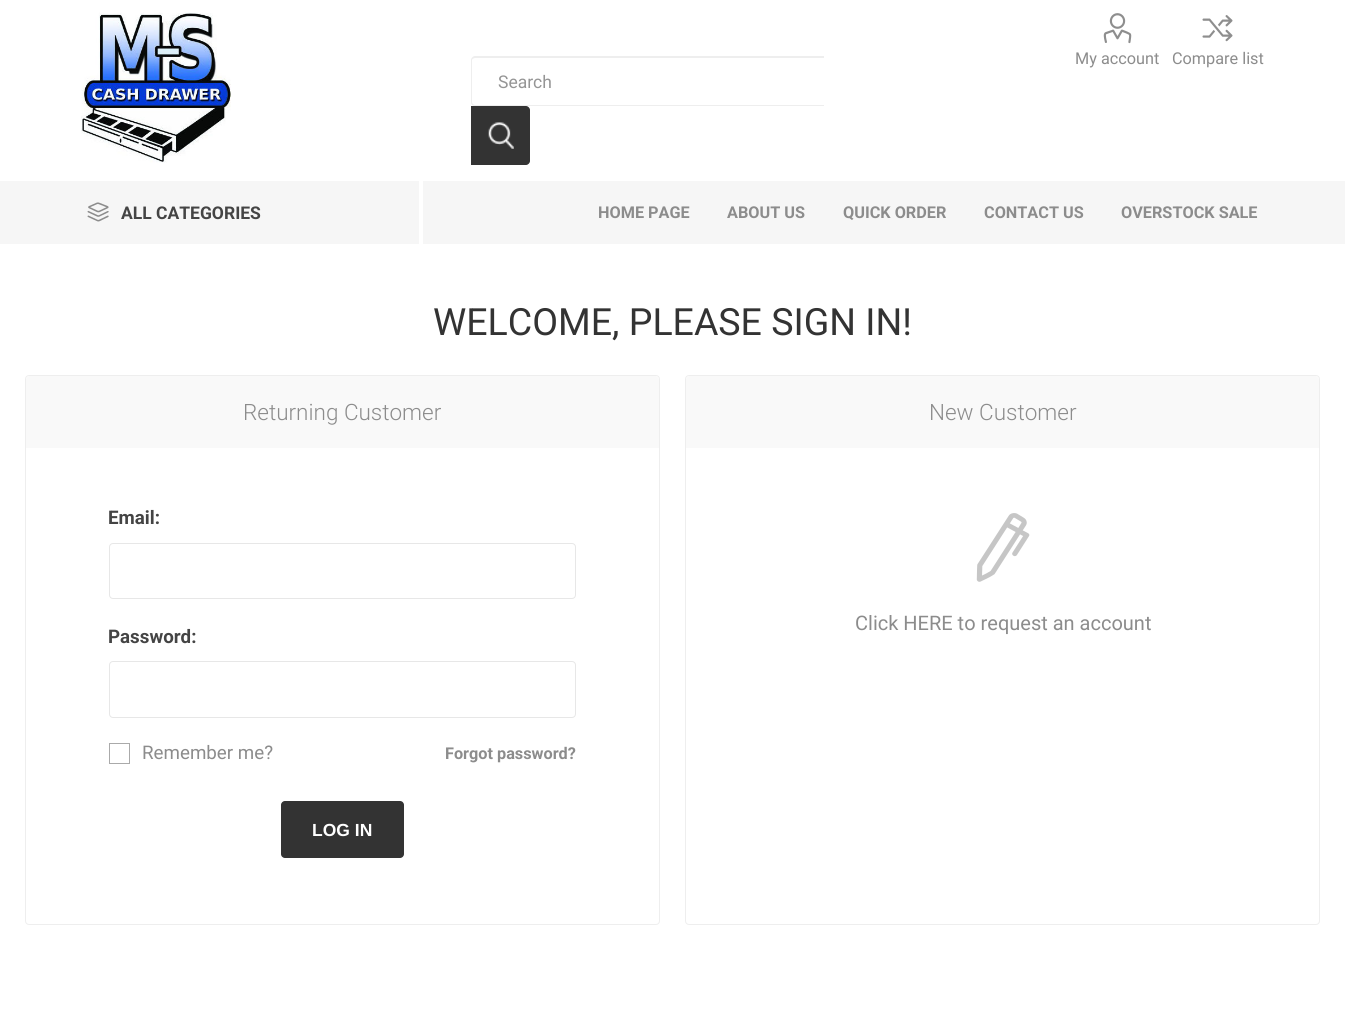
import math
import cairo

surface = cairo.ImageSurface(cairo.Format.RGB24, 1345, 1023)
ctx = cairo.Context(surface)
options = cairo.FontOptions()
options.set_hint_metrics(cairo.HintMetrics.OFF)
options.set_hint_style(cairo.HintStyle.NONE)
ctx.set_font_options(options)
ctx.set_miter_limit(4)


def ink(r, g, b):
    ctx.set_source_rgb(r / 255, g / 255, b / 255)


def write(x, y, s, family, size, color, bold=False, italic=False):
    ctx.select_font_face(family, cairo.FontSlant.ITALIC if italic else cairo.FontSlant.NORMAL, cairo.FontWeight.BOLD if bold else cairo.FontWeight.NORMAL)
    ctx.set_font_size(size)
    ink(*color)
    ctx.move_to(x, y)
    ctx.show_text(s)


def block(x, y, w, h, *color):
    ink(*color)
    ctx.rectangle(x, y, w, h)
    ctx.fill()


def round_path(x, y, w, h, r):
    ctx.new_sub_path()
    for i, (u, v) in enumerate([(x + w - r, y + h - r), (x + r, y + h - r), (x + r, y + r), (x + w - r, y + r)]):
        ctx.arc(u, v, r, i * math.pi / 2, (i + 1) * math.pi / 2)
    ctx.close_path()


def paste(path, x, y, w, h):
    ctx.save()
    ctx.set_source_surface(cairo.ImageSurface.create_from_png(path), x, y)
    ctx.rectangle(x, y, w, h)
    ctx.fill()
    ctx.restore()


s1 = dict(family="Roboto", size=16.25, color=(140, 140, 140))
s2 = dict(family="Roboto", size=17.5, color=(149, 149, 149))
s3 = dict(family="Roboto", size=17.5, color=(68, 68, 68), bold=True)
s4 = dict(family="Roboto", size=16.25, color=(140, 140, 140), bold=True)
s5 = dict(family="Roboto", size=37.5, color=(51, 51, 51))
s6 = dict(family="Roboto Light", size=22.5, color=(140, 140, 140))
s7 = dict(family="Roboto", size=18.75, color=(68, 68, 68), bold=True)
s8 = dict(family="Roboto", size=18.75, color=(140, 140, 140))
s9 = dict(family="Liberation Sans", size=17.5, color=(255, 255, 255), bold=True)
s10 = dict(family="Roboto", size=20, color=(140, 140, 140))

ink(255, 255, 255)
ctx.paint()
paste("pic1.png", 81, 12, 150, 151)
paste("pic2.png", 1103, 13, 29, 31)
write(1075, 64, "My account", **s1)
paste("pic3.png", 1202, 15, 31, 27)
write(1172, 64, "Compare list", **s1)
ink(238, 238, 238)
ctx.set_fill_rule(cairo.FillRule.EVEN_ODD)
ctx.new_path()
ctx.move_to(475, 56)
ctx.line_to(824, 56)
ctx.line_to(824, 106)
ctx.line_to(475, 106)
ctx.curve_to(473, 106, 471, 105, 471, 102)
ctx.line_to(471, 60)
ctx.curve_to(471, 58, 473, 56, 475, 56)
ctx.close_path()
ctx.move_to(475, 58)
ctx.line_to(824, 58)
ctx.line_to(824, 105)
ctx.line_to(475, 105)
ctx.curve_to(474, 105, 472, 104, 472, 102)
ctx.line_to(472, 60)
ctx.curve_to(472, 59, 474, 58, 475, 58)
ctx.close_path()
ctx.fill()
write(498, 88, "Search", **s2)
ink(51, 51, 51)
ctx.new_path()
ctx.move_to(471, 106)
ctx.line_to(526, 106)
ctx.curve_to(528, 106, 530, 108, 530, 110)
ctx.line_to(530, 161)
ctx.curve_to(530, 163, 528, 165, 526, 165)
ctx.line_to(471, 165)
ctx.close_path()
ctx.fill()
paste("pic4.png", 488, 122, 26, 27)
block(0, 181, 1345, 63, 246, 246, 246)
block(419, 181, 4, 63, 255, 255, 255)
paste("pic5.png", 87, 202, 22, 20)
write(121, 219, "ALL CATEGORIES", **s3)
write(598, 218, "HOME PAGE", **s4)
write(727, 218, "ABOUT US", **s4)
write(843, 218, "QUICK ORDER", **s4)
write(984, 218, "CONTACT US", **s4)
write(1121, 218, "OVERSTOCK SALE", **s4)
write(433, 335, "WELCOME, PLEASE SIGN IN!", **s5)
round_path(25.5, 375.5, 634, 549, 3.5)
ink(238, 238, 238)
ctx.set_line_width(1)
ctx.stroke()
ink(249, 249, 249)
ctx.new_path()
ctx.move_to(30, 376)
ctx.line_to(655, 376)
ctx.curve_to(657, 376, 659, 378, 659, 380)
ctx.line_to(659, 448)
ctx.line_to(26, 448)
ctx.line_to(26, 380)
ctx.curve_to(26, 378, 28, 376, 30, 376)
ctx.close_path()
ctx.fill()
write(243, 420, "Returning Customer", **s6)
write(108, 524, "Email:", **s7)
round_path(109.5, 543.5, 466, 55, 3.5)
ink(231, 231, 231)
ctx.stroke()
write(108, 643, "Password:", **s7)
round_path(109.5, 661.5, 466, 56, 3.5)
ink(231, 231, 231)
ctx.stroke()
ctx.rectangle(109.5, 743.5, 20, 20)
ink(170, 170, 170)
ctx.stroke()
write(142, 759, "Remember me?", **s8)
write(445, 759, "Forgot password?", **s4)
ink(51, 51, 51)
round_path(281, 801, 123, 57, 4)
ctx.fill()
write(312, 836, "LOG IN", **s9)
round_path(685.5, 375.5, 634, 549, 3.5)
ink(238, 238, 238)
ctx.stroke()
ink(249, 249, 249)
ctx.new_path()
ctx.move_to(690, 376)
ctx.line_to(1315, 376)
ctx.curve_to(1317, 376, 1319, 378, 1319, 380)
ctx.line_to(1319, 448)
ctx.line_to(686, 448)
ctx.line_to(686, 380)
ctx.curve_to(686, 378, 688, 376, 690, 376)
ctx.close_path()
ctx.fill()
write(929, 420, "New Customer", **s6)
paste("pic6.png", 976, 513, 54, 69)
write(855, 630, "Click HERE to request an account", **s10)
surface.write_to_png("screenshot.png")
